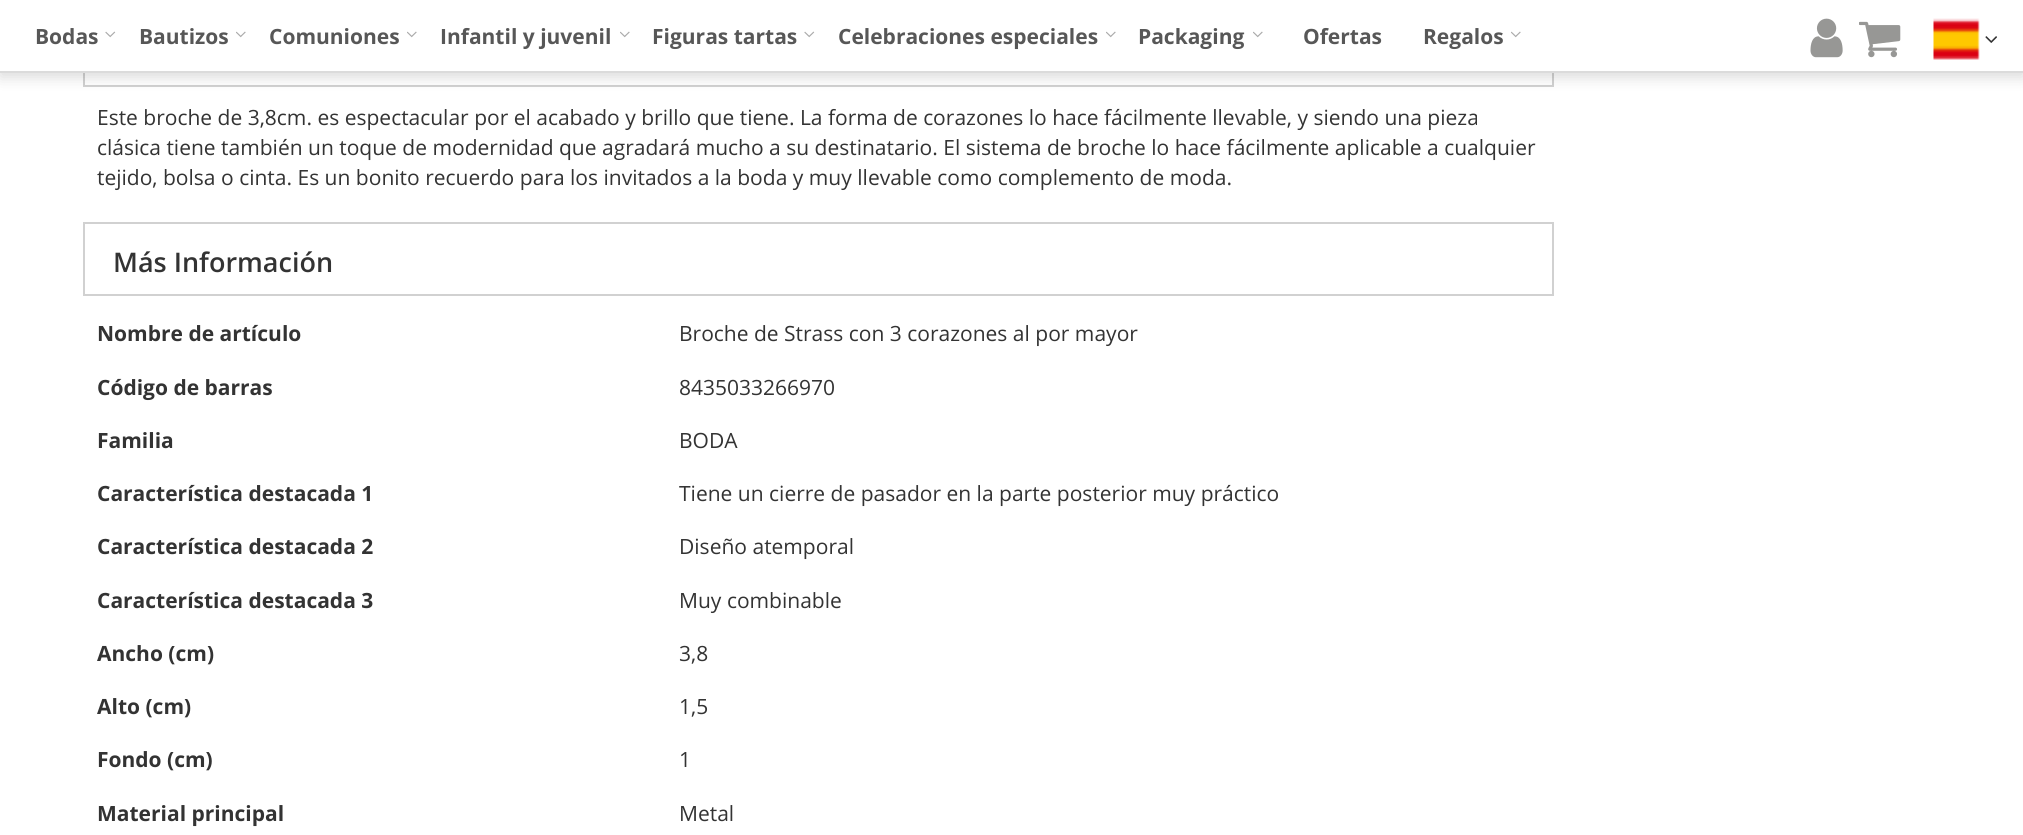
import math
import cairo

surface = cairo.ImageSurface(cairo.Format.RGB24, 2023, 835)
ctx = cairo.Context(surface)
options = cairo.FontOptions()
options.set_hint_metrics(cairo.HintMetrics.OFF)
options.set_hint_style(cairo.HintStyle.NONE)
ctx.set_font_options(options)
ctx.set_miter_limit(4)


def ink(r, g, b):
    ctx.set_source_rgb(r / 255, g / 255, b / 255)


def write(x, y, s, family, size, color, bold=False, italic=False):
    ctx.select_font_face(family, cairo.FontSlant.ITALIC if italic else cairo.FontSlant.NORMAL, cairo.FontWeight.BOLD if bold else cairo.FontWeight.NORMAL)
    ctx.set_font_size(size)
    ink(*color)
    ctx.move_to(x, y)
    ctx.show_text(s)


def block(x, y, w, h, *color):
    ink(*color)
    ctx.rectangle(x, y, w, h)
    ctx.fill()


def round_path(x, y, w, h, r):
    ctx.new_sub_path()
    for i, (u, v) in enumerate([(x + w - r, y + h - r), (x + r, y + h - r), (x + r, y + r), (x + w - r, y + r)]):
        ctx.arc(u, v, r, i * math.pi / 2, (i + 1) * math.pi / 2)
    ctx.close_path()


def blur_box(x, y, w, h, r, blur, alpha):
    ctx.push_group_with_content(cairo.Content.ALPHA)
    ctx.set_operator(cairo.Operator.SOURCE)
    for i in range(15, -16, -2):
        e = blur * i / 6
        if min(w, h) + 2 * e > 0:
            ctx.set_source_rgba(0, 0, 0, alpha * math.erfc((i - 1) / 8.5) / 2)
            round_path(x - e, y - e, w + 2 * e, h + 2 * e, max(0, min(r + e + blur * .6, min(w, h) / 2 + e)))
            ctx.fill()
    ctx.mask(ctx.pop_group())


def paste(path, x, y, w, h):
    ctx.save()
    ctx.set_source_surface(cairo.ImageSurface.create_from_png(path), x, y)
    ctx.rectangle(x, y, w, h)
    ctx.fill()
    ctx.restore()


s1 = dict(family="Open Sans", size=21, color=(87, 87, 87), bold=True)
s2 = dict(family="Open Sans", size=21, color=(51, 51, 51))
s3 = dict(family="Open Sans SemiBold", size=27, color=(51, 51, 51))
s4 = dict(family="Open Sans", size=21, color=(51, 51, 51), bold=True)

ink(255, 255, 255)
ctx.paint()
ctx.rectangle(84, 15, 1469, 71)
ink(209, 209, 209)
ctx.stroke()
ink(0, 0, 0)
blur_box(0, 5, 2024, 72, 0, 7.5, 0.15)
block(0, 0, 2023, 71, 255, 255, 255)
block(0, 71, 2023, 2, 219, 219, 219)
write(35, 44, "Bodas", **s1)
paste("pic1.png", 105, 31, 11, 7)
write(139, 44, "Bautizos", **s1)
paste("pic2.png", 236, 31, 10, 7)
write(269, 44, "Comuniones", **s1)
paste("pic2.png", 407, 31, 10, 7)
write(440, 44, "Infantil y juvenil", **s1)
paste("pic2.png", 620, 31, 10, 7)
write(652, 44, "Figuras tartas", **s1)
paste("pic1.png", 804, 31, 11, 7)
write(838, 44, "Celebraciones especiales", **s1)
paste("pic2.png", 1106, 31, 10, 7)
write(1138, 44, "Packaging", **s1)
paste("pic2.png", 1253, 31, 10, 7)
write(1303, 44, "Ofertas", **s1)
write(1423, 44, "Regalos", **s1)
paste("pic2.png", 1511, 31, 10, 7)
paste("pic3.png", 1810, 18, 33, 40)
paste("pic4.png", 1859, 21, 42, 37)
paste("pic5.png", 1933, 18, 47, 42)
paste("pic6.png", 1985, 36, 12, 7)
write(97, 125, "Este broche de 3,8cm. es espectacular por el acabado y brillo que tiene. La forma de corazones lo hace fácilmente llevable, y siendo una pieza", **s2)
write(97, 155, "clásica tiene también un toque de modernidad que agradará mucho a su destinatario. El sistema de broche lo hace fácilmente aplicable a cualquier", **s2)
write(97, 185, "tejido, bolsa o cinta. Es un bonito recuerdo para los invitados a la boda y muy llevable como complemento de moda.", **s2)
ctx.rectangle(84, 223, 1469, 72)
ink(209, 209, 209)
ctx.stroke()
write(113, 272, "Más Información", **s3)
write(97, 341, "Nombre de artículo", **s4)
write(679, 341, "Broche de Strass con 3 corazones al por mayor", **s2)
write(97, 395, "Código de barras", **s4)
write(679, 395, "8435033266970", **s2)
write(97, 448, "Familia", **s4)
write(679, 448, "BODA", **s2)
write(97, 501, "Característica destacada 1", **s4)
write(679, 501, "Tiene un cierre de pasador en la parte posterior muy práctico", **s2)
write(97, 554, "Característica destacada 2", **s4)
write(679, 554, "Diseño atemporal", **s2)
write(97, 608, "Característica destacada 3", **s4)
write(679, 608, "Muy combinable", **s2)
write(97, 661, "Ancho (cm)", **s4)
write(679, 661, "3,8", **s2)
write(97, 714, "Alto (cm)", **s4)
write(679, 714, "1,5", **s2)
write(97, 767, "Fondo (cm)", **s4)
write(679, 767, "1", **s2)
write(97, 821, "Material principal", **s4)
write(679, 821, "Metal", **s2)
surface.write_to_png("screenshot.png")
